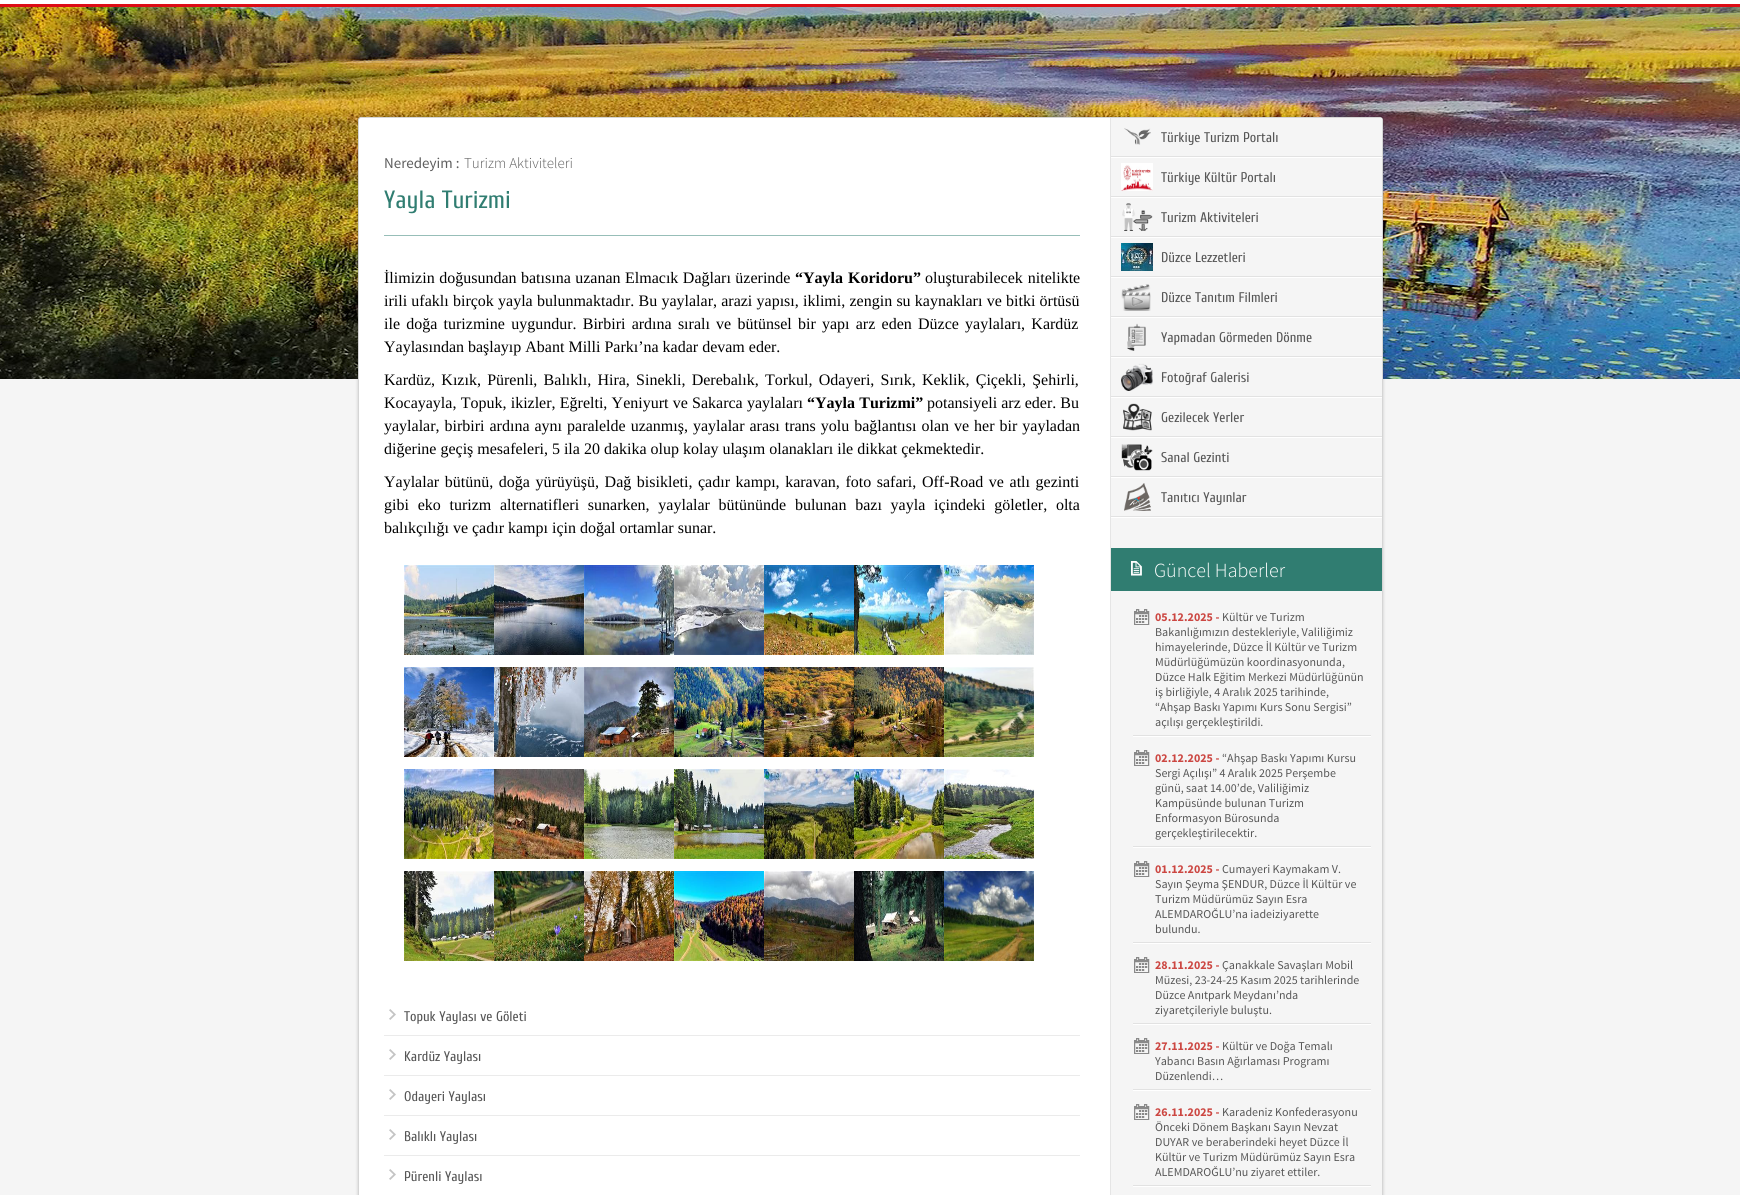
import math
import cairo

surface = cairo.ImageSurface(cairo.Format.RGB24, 1740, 1195)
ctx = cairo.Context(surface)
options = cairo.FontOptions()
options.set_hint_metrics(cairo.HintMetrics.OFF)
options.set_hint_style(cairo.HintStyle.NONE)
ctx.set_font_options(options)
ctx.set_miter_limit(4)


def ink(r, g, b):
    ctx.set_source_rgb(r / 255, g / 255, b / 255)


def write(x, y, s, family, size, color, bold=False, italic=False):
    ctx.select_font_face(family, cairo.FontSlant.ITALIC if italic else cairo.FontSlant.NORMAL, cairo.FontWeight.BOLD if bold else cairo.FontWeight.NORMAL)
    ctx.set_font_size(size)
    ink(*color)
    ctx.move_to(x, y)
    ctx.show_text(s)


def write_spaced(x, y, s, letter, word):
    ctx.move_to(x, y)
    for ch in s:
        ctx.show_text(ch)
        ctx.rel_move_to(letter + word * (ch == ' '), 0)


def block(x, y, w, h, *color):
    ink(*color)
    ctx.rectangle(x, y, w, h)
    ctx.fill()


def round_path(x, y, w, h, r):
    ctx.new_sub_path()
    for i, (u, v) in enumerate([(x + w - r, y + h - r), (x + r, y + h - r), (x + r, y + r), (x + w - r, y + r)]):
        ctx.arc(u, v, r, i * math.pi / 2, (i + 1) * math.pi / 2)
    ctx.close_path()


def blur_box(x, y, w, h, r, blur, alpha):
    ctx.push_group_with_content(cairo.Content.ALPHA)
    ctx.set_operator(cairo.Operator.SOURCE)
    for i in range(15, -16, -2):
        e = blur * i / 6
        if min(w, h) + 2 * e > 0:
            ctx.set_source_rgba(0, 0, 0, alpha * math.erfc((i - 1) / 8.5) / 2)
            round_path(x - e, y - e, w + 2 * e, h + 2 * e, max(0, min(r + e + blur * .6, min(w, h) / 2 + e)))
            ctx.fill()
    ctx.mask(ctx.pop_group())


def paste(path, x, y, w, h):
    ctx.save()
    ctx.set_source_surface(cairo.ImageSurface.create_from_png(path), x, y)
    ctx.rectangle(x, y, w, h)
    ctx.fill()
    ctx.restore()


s1 = dict(family="Source Sans Pro", size=15, color=(93, 93, 93))
s2 = dict(family="Source Sans Pro Light", size=15, color=(93, 93, 93))
s3 = dict(family="Cuprum", size=25, color=(48, 125, 113))
s4 = dict(family="Liberation Serif", size=16, color=(0, 0, 0))
s5 = dict(family="Cuprum", size=14, color=(86, 86, 86))
s6 = dict(family="Source Sans Pro Light", size=20, color=(255, 255, 255))
s7 = dict(family="Source Sans Pro", size=12, color=(204, 71, 66), bold=True)
s8 = dict(family="Source Sans Pro", size=12, color=(86, 86, 86))

ink(255, 255, 255)
ctx.paint()
block(0, 4, 1740, 3, 220, 12, 21)
block(0, 379, 1740, 816, 245, 245, 245)
paste("pic1.png", 0, 7, 1740, 372)
ink(0, 0, 0)
blur_box(358, 117, 1025, 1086, 3, 1.5, 0.2)
ink(255, 255, 255)
round_path(358.5, 117.5, 1024, 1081, 2.5)
ctx.fill_preserve()
ink(213, 213, 213)
ctx.set_line_width(1)
ctx.stroke()
write(384, 168, "Neredeyim :", **s1)
write(464, 168, "Turizm Aktiviteleri", **s2)
block(384, 235, 696, 1, 151, 190, 184)
write(384, 208, "Yayla Turizmi", **s3)
ctx.select_font_face("Liberation Serif")
ctx.set_font_size(16)
ink(0, 0, 0)
write_spaced(384, 283, "İlimizin doğusundan batısına uzanan Elmacık Dağları üzerinde", 0, 0.5)
ctx.select_font_face("Liberation Serif", cairo.FontSlant.NORMAL, cairo.FontWeight.BOLD)
write_spaced(795, 283, "“Yayla Koridoru”", 0, 1)
ctx.select_font_face("Liberation Serif")
write_spaced(925, 283, "oluşturabilecek nitelikte", 0, 1)
write_spaced(384, 306, "irili ufaklı birçok yayla bulunmaktadır. Bu yaylalar, arazi yapısı, iklimi, zengin su kaynakları ve bitki örtüsü", 0, 0.25)
write_spaced(384, 329, "ile doğa turizmine uygundur. Birbiri ardına sıralı ve bütünsel bir yapı arz eden Düzce yaylaları, Kardüz", 0, 2.25)
write(384, 352, "Yaylasından başlayıp Abant Milli Parkı’na kadar devam eder.", **s4)
write_spaced(384, 385, "Kardüz, Kızık, Pürenli, Balıklı, Hira, Sinekli, Derebalık, Torkul, Odayeri, Sırık, Keklik, Çiçekli, Şehirli,", 0, 2.25)
write_spaced(384, 408, "Kocayayla, Topuk, ikizler, Eğrelti, Yeniyurt ve Sakarca yaylaları", 0, 0.25)
ctx.select_font_face("Liberation Serif", cairo.FontSlant.NORMAL, cairo.FontWeight.BOLD)
write_spaced(807, 408, "“Yayla Turizmi”", 0, 0.25)
write(927, 408, "potansiyeli arz eder. Bu", **s4)
write_spaced(384, 431, "yaylalar, birbiri ardına aynı paralelde uzanmış, yaylalar arası trans yolu bağlantısı olan ve her bir yayladan", 0, 1)
write(384, 454, "diğerine geçiş mesafeleri, 5 ila 20 dakika olup kolay ulaşım olanakları ile dikkat çekmektedir.", **s4)
write_spaced(384, 487, "Yaylalar bütünü, doğa yürüyüşü, Dağ bisikleti, çadır kampı, karavan, foto safari, Off-Road ve atlı gezinti", 0, 1.6)
write_spaced(384, 510, "gibi eko turizm alternatifleri sunarken, yaylalar bütününde bulunan bazı yayla içindeki göletler, olta", 0, 4.75)
write(384, 533, "balıkçılığı ve çadır kampı için doğal ortamlar sunar.", **s4)
paste("pic2.png", 404, 565, 90, 90)
paste("pic3.png", 494, 565, 90, 90)
paste("pic4.png", 584, 565, 90, 90)
paste("pic5.png", 674, 565, 90, 90)
paste("pic6.png", 764, 565, 90, 90)
paste("pic7.png", 854, 565, 90, 90)
paste("pic8.png", 944, 565, 90, 90)
paste("pic9.png", 404, 667, 90, 90)
paste("pic10.png", 494, 667, 90, 90)
paste("pic11.png", 584, 667, 90, 90)
paste("pic12.png", 674, 667, 90, 90)
paste("pic13.png", 764, 667, 90, 90)
paste("pic14.png", 854, 667, 90, 90)
paste("pic15.png", 944, 667, 90, 90)
paste("pic16.png", 404, 769, 90, 90)
paste("pic17.png", 494, 769, 90, 90)
paste("pic18.png", 584, 769, 90, 90)
paste("pic19.png", 674, 769, 90, 90)
paste("pic20.png", 764, 769, 90, 90)
paste("pic21.png", 854, 769, 90, 90)
paste("pic22.png", 944, 769, 90, 90)
paste("pic23.png", 404, 871, 90, 90)
paste("pic24.png", 494, 871, 90, 90)
paste("pic25.png", 584, 871, 90, 90)
paste("pic26.png", 674, 871, 90, 90)
paste("pic27.png", 764, 871, 90, 90)
paste("pic28.png", 854, 871, 90, 90)
paste("pic29.png", 944, 871, 90, 90)
block(384, 1035, 696, 1, 235, 235, 235)
paste("pic30.png", 389, 1009, 7, 11)
write(404, 1021, "Topuk Yaylası ve Göleti", **s5)
block(384, 1075, 696, 1, 235, 235, 235)
paste("pic30.png", 389, 1049, 7, 11)
write(404, 1061, "Kardüz Yaylası", **s5)
block(384, 1115, 696, 1, 235, 235, 235)
paste("pic30.png", 389, 1089, 7, 11)
write(404, 1101, "Odayeri Yaylası", **s5)
block(384, 1155, 696, 1, 235, 235, 235)
paste("pic30.png", 389, 1129, 7, 11)
write(404, 1141, "Balıklı Yaylası", **s5)
paste("pic30.png", 389, 1169, 7, 11)
write(404, 1181, "Pürenli Yaylası", **s5)
block(1111, 118, 271, 1077, 245, 245, 245)
block(1110, 118, 1, 1077, 229, 229, 229)
paste("pic31.png", 1111, 156, 271, 2)
paste("pic32.png", 1124, 128, 27, 17)
write(1161, 142, "Türkiye Turizm Portalı", **s5)
paste("pic31.png", 1111, 196, 271, 2)
paste("pic33.png", 1121, 163, 32, 28)
write(1161, 182, "Türkiye Kültür Portalı", **s5)
paste("pic31.png", 1111, 236, 271, 2)
paste("pic34.png", 1122, 203, 31, 28)
write(1161, 222, "Turizm Aktiviteleri", **s5)
paste("pic31.png", 1111, 276, 271, 2)
paste("pic35.png", 1121, 243, 32, 28)
write(1161, 262, "Düzce Lezzetleri", **s5)
paste("pic31.png", 1111, 316, 271, 2)
paste("pic36.png", 1121, 284, 30, 27)
write(1161, 302, "Düzce Tanıtım Filmleri", **s5)
paste("pic31.png", 1111, 356, 271, 2)
paste("pic37.png", 1127, 323, 19, 28)
write(1161, 342, "Yapmadan Görmeden Dönme", **s5)
paste("pic31.png", 1111, 396, 271, 2)
paste("pic38.png", 1121, 363, 32, 28)
write(1161, 382, "Fotoğraf Galerisi", **s5)
paste("pic31.png", 1111, 436, 271, 2)
paste("pic39.png", 1123, 403, 29, 28)
write(1161, 422, "Gezilecek Yerler", **s5)
paste("pic31.png", 1111, 476, 271, 2)
paste("pic40.png", 1121, 444, 32, 27)
write(1161, 462, "Sanal Gezinti", **s5)
paste("pic31.png", 1111, 516, 271, 2)
paste("pic41.png", 1124, 483, 27, 28)
write(1161, 502, "Tanıtıcı Yayınlar", **s5)
block(1111, 548, 271, 43, 48, 125, 113)
paste("pic42.png", 1131, 561, 11, 15)
write(1154, 577, "Güncel Haberler", **s6)
paste("pic43.png", 1133, 735, 238, 2)
paste("pic44.png", 1134, 609, 16, 16)
write(1155, 621, "05.12.2025 -", **s7)
write(1222, 621, "Kültür ve Turizm", **s8)
write(1155, 636, "Bakanlığımızın destekleriyle, Valiliğimiz", **s8)
write(1155, 651, "himayelerinde, Düzce İl Kültür ve Turizm", **s8)
write(1155, 666, "Müdürlüğümüzün koordinasyonunda,", **s8)
write(1155, 681, "Düzce Halk Eğitim Merkezi Müdürlüğünün", **s8)
write(1155, 696, "iş birliğiyle, 4 Aralık 2025 tarihinde,", **s8)
write(1155, 711, "“Ahşap Baskı Yapımı Kurs Sonu Sergisi”", **s8)
write(1155, 726, "açılışı gerçekleştirildi.", **s8)
paste("pic43.png", 1133, 846, 238, 2)
paste("pic44.png", 1134, 750, 16, 16)
write(1155, 762, "02.12.2025 -", **s7)
write(1222, 762, "“Ahşap Baskı Yapımı Kursu", **s8)
write(1155, 777, "Sergi Açılışı” 4 Aralık 2025 Perşembe", **s8)
write(1155, 792, "günü, saat 14.00’de, Valiliğimiz", **s8)
write(1155, 807, "Kampüsünde bulunan Turizm", **s8)
write(1155, 822, "Enformasyon Bürosunda", **s8)
write(1155, 837, "gerçekleştirilecektir.", **s8)
paste("pic43.png", 1133, 942, 238, 2)
paste("pic44.png", 1134, 861, 16, 16)
write(1155, 873, "01.12.2025 -", **s7)
write(1222, 873, "Cumayeri Kaymakam V.", **s8)
write(1155, 888, "Sayın Şeyma ŞENDUR, Düzce İl Kültür ve", **s8)
write(1155, 903, "Turizm Müdürümüz Sayın Esra", **s8)
write(1155, 918, "ALEMDAROĞLU’na iadeiziyarette", **s8)
write(1155, 933, "bulundu.", **s8)
paste("pic43.png", 1133, 1023, 238, 2)
paste("pic44.png", 1134, 957, 16, 16)
write(1155, 969, "28.11.2025 -", **s7)
write(1222, 969, "Çanakkale Savaşları Mobil", **s8)
write(1155, 984, "Müzesi, 23-24-25 Kasım 2025 tarihlerinde", **s8)
write(1155, 999, "Düzce Anıtpark Meydanı’nda", **s8)
write(1155, 1014, "ziyaretçileriyle buluştu.", **s8)
paste("pic43.png", 1133, 1089, 238, 2)
paste("pic44.png", 1134, 1038, 16, 16)
write(1155, 1050, "27.11.2025 -", **s7)
write(1222, 1050, "Kültür ve Doğa Temalı", **s8)
write(1155, 1065, "Yabancı Basın Ağırlaması Programı", **s8)
write(1155, 1080, "Düzenlendi…", **s8)
paste("pic43.png", 1133, 1185, 238, 2)
paste("pic44.png", 1134, 1104, 16, 16)
write(1155, 1116, "26.11.2025 -", **s7)
write(1222, 1116, "Karadeniz Konfederasyonu", **s8)
write(1155, 1131, "Önceki Dönem Başkanı Sayın Nevzat", **s8)
write(1155, 1146, "DUYAR ve beraberindeki heyet Düzce İl", **s8)
write(1155, 1161, "Kültür ve Turizm Müdürümüz Sayın Esra", **s8)
write(1155, 1176, "ALEMDAROĞLU’nu ziyaret ettiler.", **s8)
surface.write_to_png("screenshot.png")
